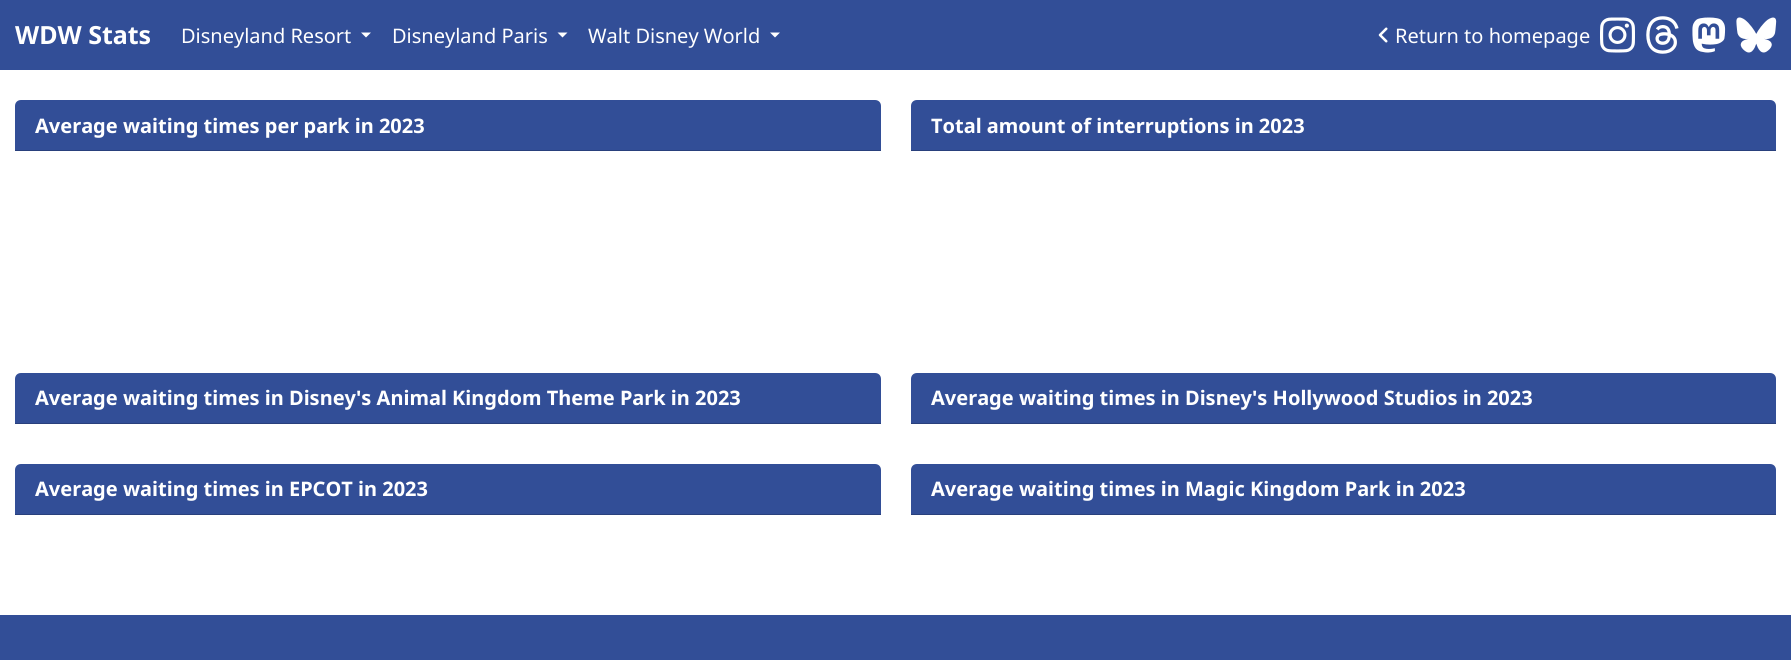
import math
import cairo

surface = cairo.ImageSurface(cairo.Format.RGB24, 1791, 660)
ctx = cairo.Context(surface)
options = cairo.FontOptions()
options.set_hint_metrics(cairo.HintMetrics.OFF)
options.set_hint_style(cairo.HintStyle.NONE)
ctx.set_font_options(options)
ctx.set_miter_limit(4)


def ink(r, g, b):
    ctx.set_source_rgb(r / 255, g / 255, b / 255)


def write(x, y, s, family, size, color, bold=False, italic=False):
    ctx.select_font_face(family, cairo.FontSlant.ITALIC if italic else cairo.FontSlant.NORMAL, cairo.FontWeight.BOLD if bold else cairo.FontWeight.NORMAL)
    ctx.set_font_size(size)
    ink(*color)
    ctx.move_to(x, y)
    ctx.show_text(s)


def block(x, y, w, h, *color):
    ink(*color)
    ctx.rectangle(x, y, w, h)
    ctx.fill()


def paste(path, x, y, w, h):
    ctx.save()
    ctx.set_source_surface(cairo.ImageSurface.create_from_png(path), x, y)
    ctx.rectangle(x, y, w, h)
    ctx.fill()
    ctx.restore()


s1 = dict(family="Noto Sans", size=25, color=(255, 255, 255), bold=True)
s2 = dict(family="Noto Sans", size=20, color=(255, 255, 255))
s3 = dict(family="Noto Sans", size=20, color=(255, 255, 255), bold=True)

ink(255, 255, 255)
ctx.paint()
block(0, 0, 1791, 70, 50, 78, 151)
write(15, 44, "WDW Stats", **s1)
write(181, 43, "Disneyland Resort", **s2)
ctx.new_path()
ctx.move_to(361, 32.5)
ctx.line_to(371, 32.5)
ctx.line_to(366, 37.5)
ctx.close_path()
ctx.fill()
write(392, 43, "Disneyland Paris", **s2)
ctx.new_path()
ctx.move_to(557.5, 32.5)
ctx.line_to(567.5, 32.5)
ctx.line_to(562.5, 37.5)
ctx.close_path()
ctx.fill()
write(588, 43, "Walt Disney World", **s2)
ctx.new_path()
ctx.move_to(770, 32.5)
ctx.line_to(780, 32.5)
ctx.line_to(775, 37.5)
ctx.close_path()
ctx.fill()
paste("pic1.png", 1378, 27, 10, 16)
write(1395, 43, "Return to homepage", **s2)
paste("pic2.png", 1600, 17, 35, 36)
paste("pic3.png", 1646, 16, 33, 38)
paste("pic4.png", 1692, 17, 34, 36)
paste("pic5.png", 1736, 17, 41, 36)
ink(50, 78, 151)
ctx.new_path()
ctx.move_to(21, 100)
ctx.line_to(875, 100)
ctx.curve_to(878.5, 100, 881, 102.5, 881, 106)
ctx.line_to(881, 151)
ctx.line_to(15, 151)
ctx.line_to(15, 106)
ctx.curve_to(15, 102.5, 17.5, 100, 21, 100)
ctx.close_path()
ctx.fill()
block(15, 150, 866, 1, 41, 64, 124)
write(35, 133, "Average waiting times per park in 2023", **s3)
ink(50, 78, 151)
ctx.new_path()
ctx.move_to(917, 100)
ctx.line_to(1770, 100)
ctx.curve_to(1773.5, 100, 1776, 102.5, 1776, 106)
ctx.line_to(1776, 151)
ctx.line_to(911, 151)
ctx.line_to(911, 106)
ctx.curve_to(911, 102.5, 913.5, 100, 917, 100)
ctx.close_path()
ctx.fill()
block(911, 150, 865, 1, 41, 64, 124)
write(931, 133, "Total amount of interruptions in 2023", **s3)
ink(50, 78, 151)
ctx.new_path()
ctx.move_to(21, 373)
ctx.line_to(875, 373)
ctx.curve_to(878.5, 373, 881, 375.5, 881, 379)
ctx.line_to(881, 424)
ctx.line_to(15, 424)
ctx.line_to(15, 379)
ctx.curve_to(15, 375.5, 17.5, 373, 21, 373)
ctx.close_path()
ctx.fill()
block(15, 423, 866, 1, 41, 64, 124)
write(35, 405, "Average waiting times in Disney's Animal Kingdom Theme Park in 2023", **s3)
ink(50, 78, 151)
ctx.new_path()
ctx.move_to(917, 373)
ctx.line_to(1770, 373)
ctx.curve_to(1773.5, 373, 1776, 375.5, 1776, 379)
ctx.line_to(1776, 424)
ctx.line_to(911, 424)
ctx.line_to(911, 379)
ctx.curve_to(911, 375.5, 913.5, 373, 917, 373)
ctx.close_path()
ctx.fill()
block(911, 423, 865, 1, 41, 64, 124)
write(931, 405, "Average waiting times in Disney's Hollywood Studios in 2023", **s3)
ink(50, 78, 151)
ctx.new_path()
ctx.move_to(21, 464)
ctx.line_to(875, 464)
ctx.curve_to(878.5, 464, 881, 466.5, 881, 470)
ctx.line_to(881, 515)
ctx.line_to(15, 515)
ctx.line_to(15, 470)
ctx.curve_to(15, 466.5, 17.5, 464, 21, 464)
ctx.close_path()
ctx.fill()
block(15, 514, 866, 1, 41, 64, 124)
write(35, 496, "Average waiting times in EPCOT in 2023", **s3)
ink(50, 78, 151)
ctx.new_path()
ctx.move_to(917, 464)
ctx.line_to(1770, 464)
ctx.curve_to(1773.5, 464, 1776, 466.5, 1776, 470)
ctx.line_to(1776, 515)
ctx.line_to(911, 515)
ctx.line_to(911, 470)
ctx.curve_to(911, 466.5, 913.5, 464, 917, 464)
ctx.close_path()
ctx.fill()
block(911, 514, 865, 1, 41, 64, 124)
write(931, 496, "Average waiting times in Magic Kingdom Park in 2023", **s3)
block(0, 615, 1791, 45, 50, 78, 151)
surface.write_to_png("screenshot.png")
